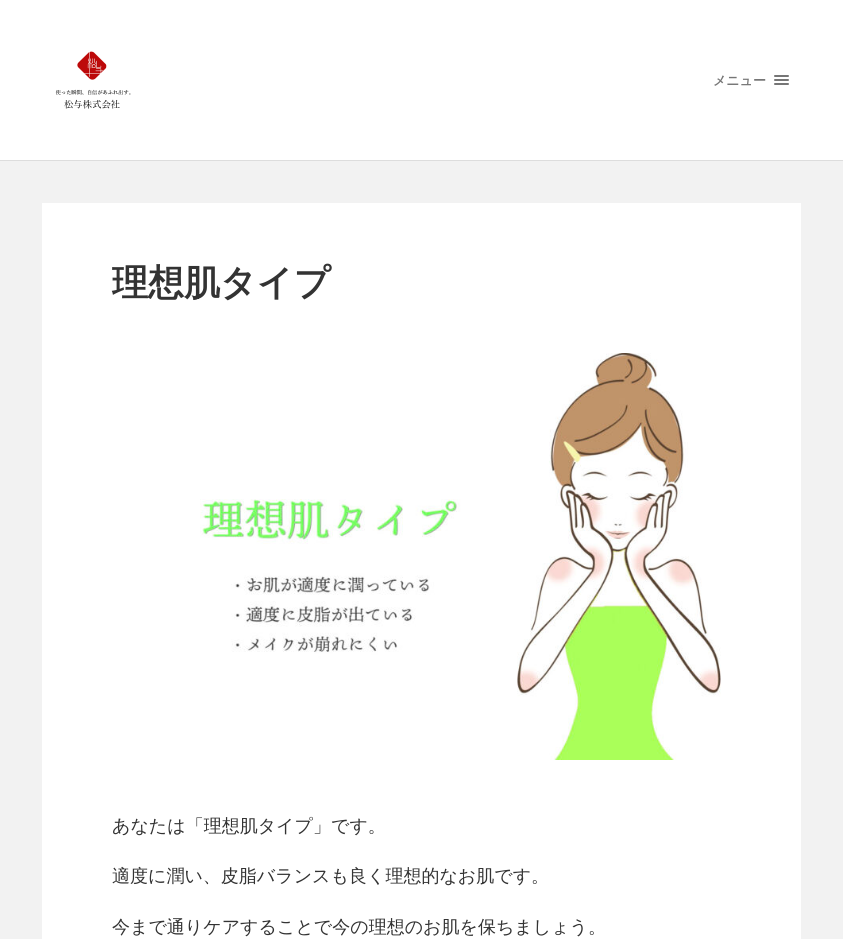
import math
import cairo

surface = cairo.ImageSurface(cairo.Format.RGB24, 843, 939)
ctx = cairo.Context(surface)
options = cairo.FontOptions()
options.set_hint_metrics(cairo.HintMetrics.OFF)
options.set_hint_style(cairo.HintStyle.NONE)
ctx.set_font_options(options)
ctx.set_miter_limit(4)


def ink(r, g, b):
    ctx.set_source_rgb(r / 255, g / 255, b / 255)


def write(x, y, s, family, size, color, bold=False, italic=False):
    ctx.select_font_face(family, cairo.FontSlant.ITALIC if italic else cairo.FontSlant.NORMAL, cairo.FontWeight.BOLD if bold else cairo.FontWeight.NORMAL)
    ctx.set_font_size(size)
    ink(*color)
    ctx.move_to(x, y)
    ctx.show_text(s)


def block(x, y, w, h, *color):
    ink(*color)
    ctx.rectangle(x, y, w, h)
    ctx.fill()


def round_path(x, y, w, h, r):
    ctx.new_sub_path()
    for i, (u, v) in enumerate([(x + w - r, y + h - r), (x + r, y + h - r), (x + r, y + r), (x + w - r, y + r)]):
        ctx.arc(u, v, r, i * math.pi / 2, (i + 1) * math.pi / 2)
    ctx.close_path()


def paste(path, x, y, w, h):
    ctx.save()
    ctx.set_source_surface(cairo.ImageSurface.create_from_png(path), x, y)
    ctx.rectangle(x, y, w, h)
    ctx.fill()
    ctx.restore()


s1 = dict(family="WenQuanYi Zen Hei", size=13, color=(118, 118, 118), bold=True)
s2 = dict(family="WenQuanYi Zen Hei", size=36, color=(51, 51, 51), bold=True)
s3 = dict(family="WenQuanYi Zen Hei Medium", size=18, color=(51, 51, 51))

ink(242, 242, 242)
ctx.paint()
block(0, 0, 843, 160, 255, 255, 255)
block(0, 160, 843, 1, 221, 221, 221)
paste("pic1.png", 55, 50, 76, 59)
write(713, 85, "メニュー", **s1)
round_path(774, 75, 15, 2, 1)
ctx.fill()
round_path(774, 79, 15, 2, 1)
ctx.fill()
round_path(774, 83, 15, 2, 1)
ctx.fill()
block(42, 203, 759, 736, 255, 255, 255)
write(112, 295, "理想肌タイプ", **s2)
paste("pic2.png", 200, 353, 521, 407)
write(112, 832, "あなたは「理想肌タイプ」です。", **s3)
write(112, 882, "適度に潤い、皮脂バランスも良く理想的なお肌です。", **s3)
write(112, 933, "今まで通りケアすることで今の理想のお肌を保ちましょう。", **s3)
surface.write_to_png("screenshot.png")
